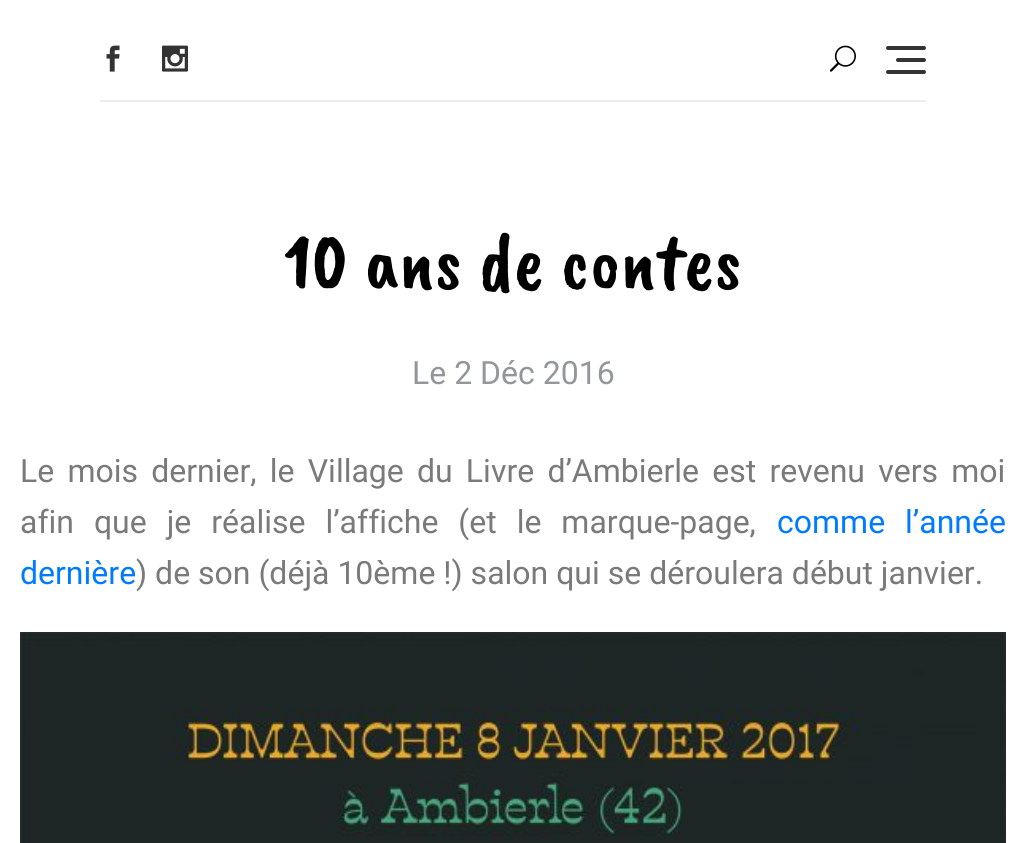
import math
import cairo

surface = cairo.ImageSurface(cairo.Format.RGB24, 1025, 843)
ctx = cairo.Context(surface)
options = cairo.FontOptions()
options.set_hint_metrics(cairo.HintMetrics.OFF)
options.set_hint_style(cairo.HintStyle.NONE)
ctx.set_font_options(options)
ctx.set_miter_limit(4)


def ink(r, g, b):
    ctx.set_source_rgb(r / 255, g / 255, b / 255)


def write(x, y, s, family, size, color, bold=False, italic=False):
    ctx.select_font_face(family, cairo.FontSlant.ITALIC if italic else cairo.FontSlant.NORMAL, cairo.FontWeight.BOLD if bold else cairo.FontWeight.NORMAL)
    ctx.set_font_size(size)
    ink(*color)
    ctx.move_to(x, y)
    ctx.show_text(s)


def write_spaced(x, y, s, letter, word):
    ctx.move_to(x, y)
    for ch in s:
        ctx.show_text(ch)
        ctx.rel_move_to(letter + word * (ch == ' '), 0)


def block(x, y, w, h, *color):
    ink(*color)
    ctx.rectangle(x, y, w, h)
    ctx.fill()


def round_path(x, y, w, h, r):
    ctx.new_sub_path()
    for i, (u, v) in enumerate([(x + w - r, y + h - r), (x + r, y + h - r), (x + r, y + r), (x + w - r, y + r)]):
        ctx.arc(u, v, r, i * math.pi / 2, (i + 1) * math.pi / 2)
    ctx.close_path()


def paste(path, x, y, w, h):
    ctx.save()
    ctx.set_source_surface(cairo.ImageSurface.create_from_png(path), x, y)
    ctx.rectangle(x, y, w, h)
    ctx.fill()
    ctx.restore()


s1 = dict(family="Caveat Brush", size=80, color=(0, 0, 0))
s2 = dict(family="Roboto", size=32, color=(147, 150, 154))
s3 = dict(family="Roboto", size=32, color=(0, 123, 255))
s4 = dict(family="Roboto", size=32, color=(122, 122, 122))

ink(255, 255, 255)
ctx.paint()
block(100, 100, 826, 2, 236, 236, 236)
paste("pic1.png", 106, 45, 14, 27)
paste("pic2.png", 162, 45, 26, 27)
paste("pic3.png", 829, 45, 27, 27)
ink(51, 51, 51)
round_path(896, 58, 30, 4, 2)
ctx.fill()
round_path(886, 46, 40, 4, 2)
ctx.fill()
round_path(886, 70, 40, 4, 2)
ctx.fill()
write(284, 288, "10 ans de contes", **s1)
write(412, 384, "Le 2 Déc 2016", **s2)
ink(122, 122, 122)
write_spaced(20, 482, "Le mois dernier, le Village du Livre d’Ambierle est revenu vers moi", 0, 5.25)
write_spaced(20, 533, "afin que je réalise l’affiche (et le marque-page,", 0, 12)
ink(0, 123, 255)
write_spaced(777, 533, "comme l’année", 0, 12)
write(20, 584, "dernière", **s3)
write(136, 584, ") de son (déjà 10ème !) salon qui se déroulera début janvier.", **s4)
paste("pic4.png", 20, 632, 986, 211)
surface.write_to_png("screenshot.png")
